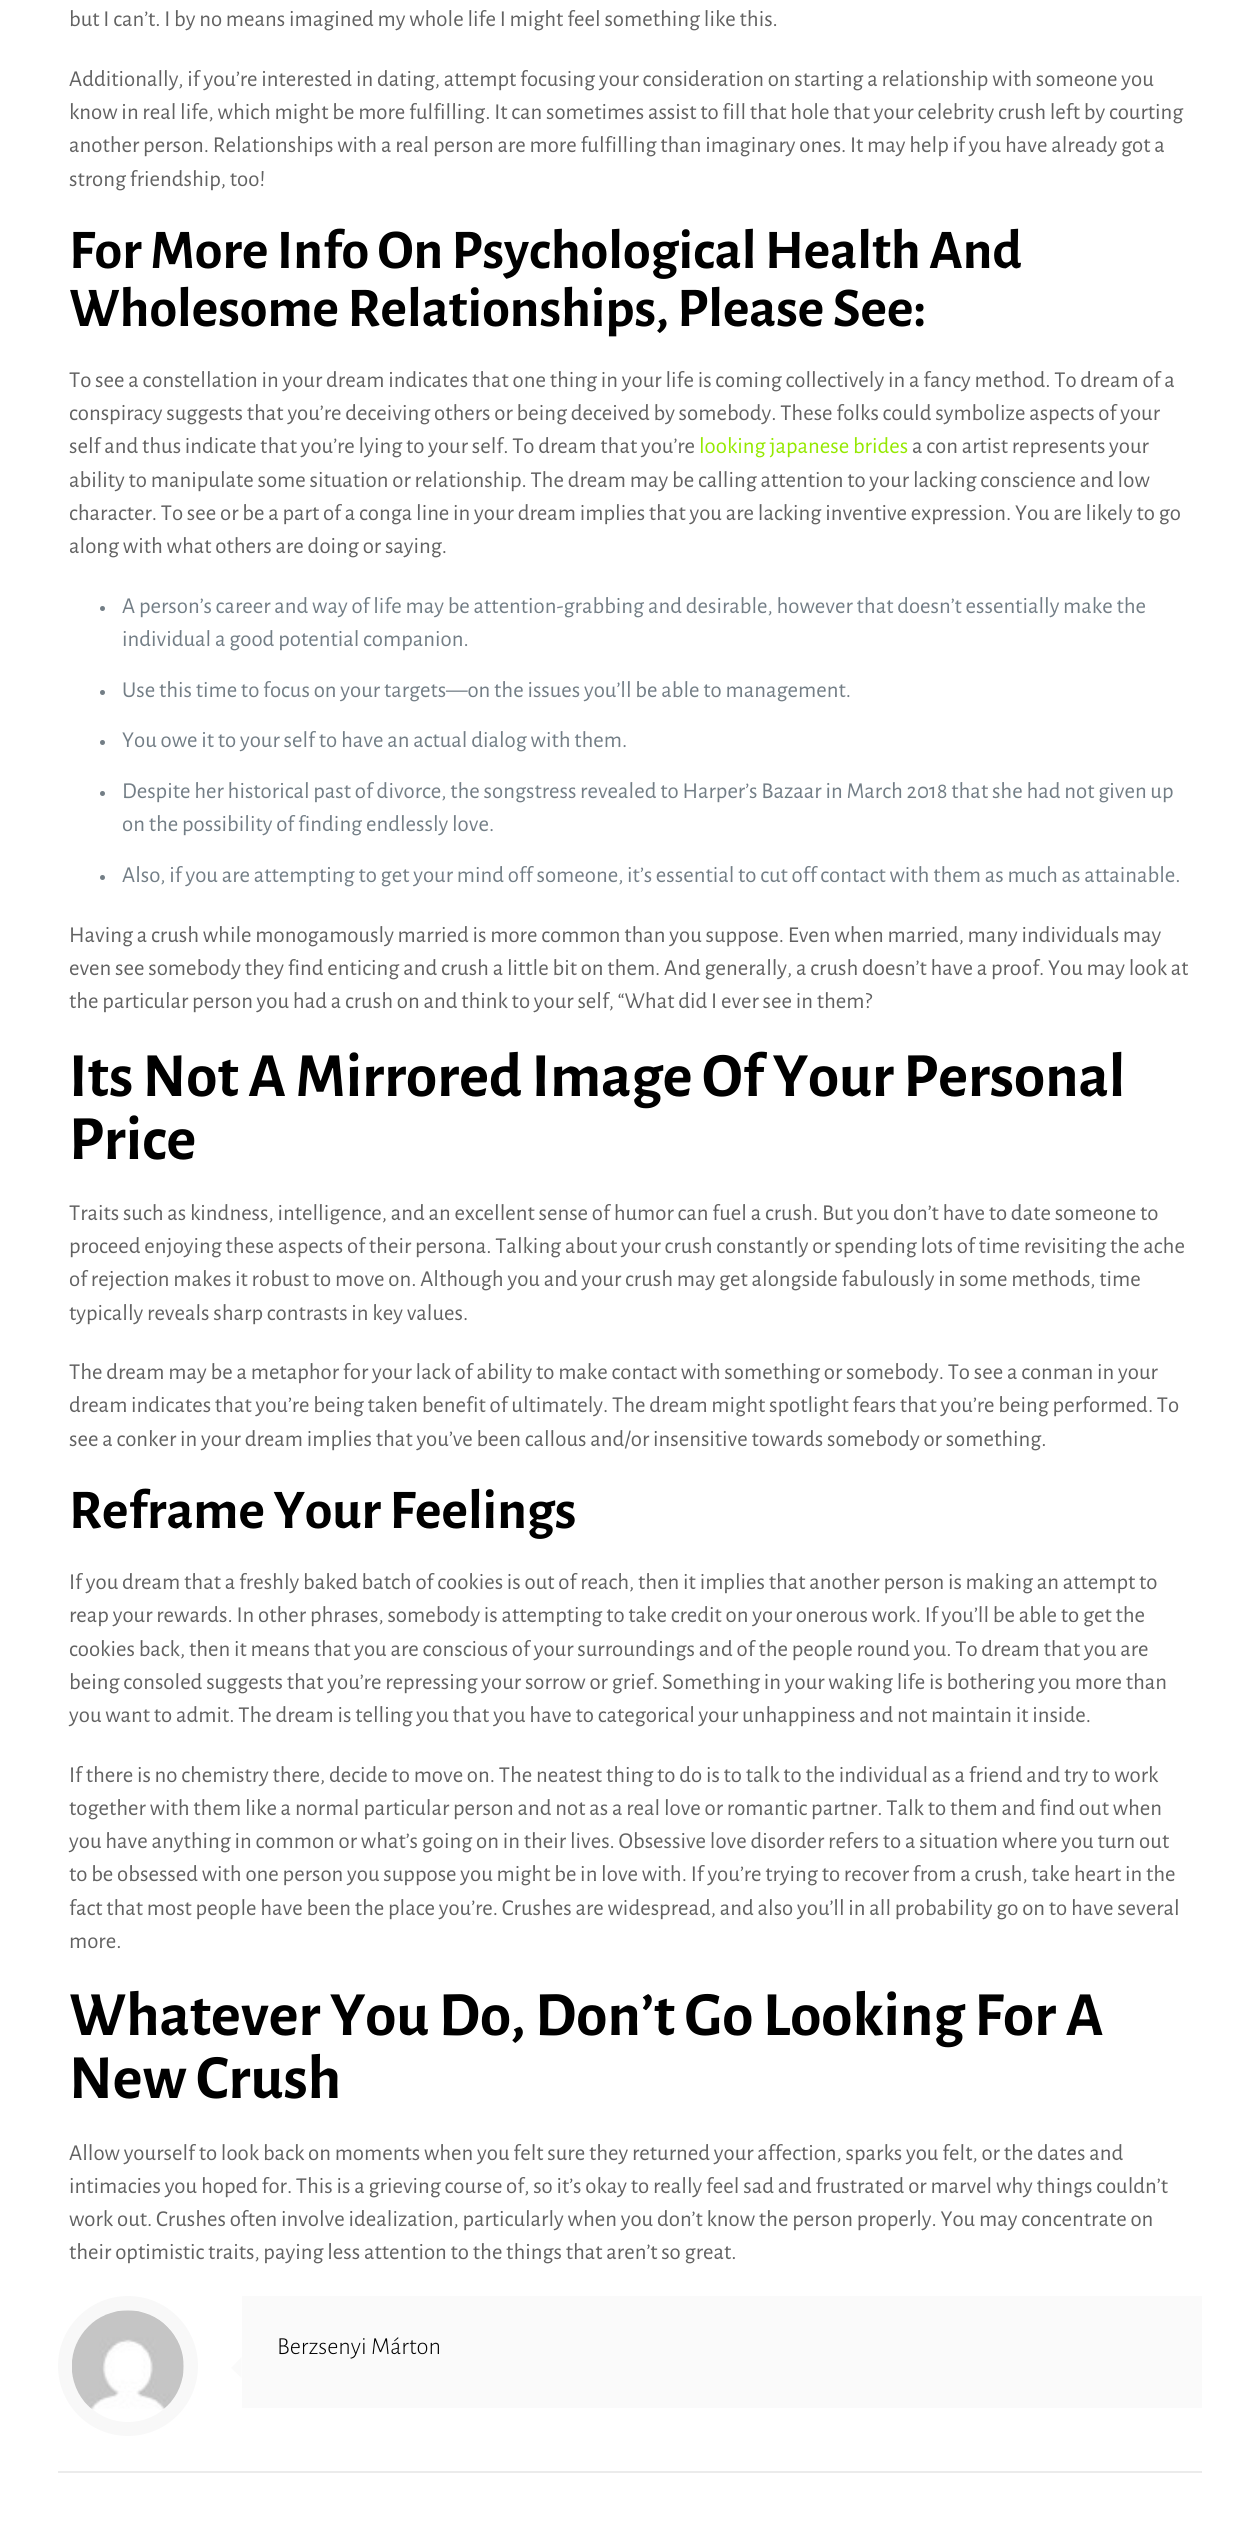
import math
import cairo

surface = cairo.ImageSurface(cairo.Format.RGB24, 1259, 2524)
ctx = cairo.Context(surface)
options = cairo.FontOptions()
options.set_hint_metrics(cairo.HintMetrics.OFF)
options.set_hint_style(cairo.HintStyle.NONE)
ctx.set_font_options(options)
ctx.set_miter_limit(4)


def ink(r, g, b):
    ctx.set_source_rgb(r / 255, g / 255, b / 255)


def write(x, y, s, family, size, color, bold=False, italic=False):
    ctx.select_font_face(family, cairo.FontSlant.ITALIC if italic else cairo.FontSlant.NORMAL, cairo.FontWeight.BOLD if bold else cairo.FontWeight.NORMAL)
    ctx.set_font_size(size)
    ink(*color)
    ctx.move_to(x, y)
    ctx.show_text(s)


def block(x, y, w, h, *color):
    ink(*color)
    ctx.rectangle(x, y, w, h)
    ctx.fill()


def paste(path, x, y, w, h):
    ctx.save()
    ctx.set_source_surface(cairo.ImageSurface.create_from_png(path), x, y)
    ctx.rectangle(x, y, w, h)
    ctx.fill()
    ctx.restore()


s1 = dict(family="Alegreya Sans", size=22.75, color=(98, 98, 98))
s2 = dict(family="Alegreya Sans", size=56, color=(0, 0, 0), bold=True)
s3 = dict(family="Alegreya Sans", size=22.75, color=(148, 233, 0))
s4 = dict(family="Alegreya Sans", size=22.75, color=(115, 126, 134))
s5 = dict(family="Alegreya Sans", size=63, color=(0, 0, 0), bold=True)
s6 = dict(family="Alegreya Sans Light", size=24.5, color=(0, 0, 0))

ink(255, 255, 255)
ctx.paint()
write(69, 26, "but I can’t. I by no means imagined my whole life I might feel something like this.", **s1)
write(69, 86, "Additionally, if you’re interested in dating, attempt focusing your consideration on starting a relationship with someone you", **s1)
write(69, 119, "know in real life, which might be more fulfilling. It can sometimes assist to fill that hole that your celebrity crush left by courting", **s1)
write(69, 152, "another person. Relationships with a real person are more fulfilling than imaginary ones. It may help if you have already got a", **s1)
write(69, 186, "strong friendship, too!", **s1)
write(69, 268, "For More Info On Psychological Health And", **s2)
write(69, 326, "Wholesome Relationships, Please See:", **s2)
write(69, 387, "To see a constellation in your dream indicates that one thing in your life is coming collectively in a fancy method. To dream of a", **s1)
write(69, 420, "conspiracy suggests that you’re deceiving others or being deceived by somebody. These folks could symbolize aspects of your", **s1)
write(69, 453, "self and thus indicate that you’re lying to your self. To dream that you’re", **s1)
write(699, 453, "looking japanese brides", **s3)
write(912, 453, "a con artist represents your", **s1)
write(69, 487, "ability to manipulate some situation or relationship. The dream may be calling attention to your lacking conscience and low", **s1)
write(69, 520, "character. To see or be a part of a conga line in your dream implies that you are lacking inventive expression. You are likely to go", **s1)
write(69, 553, "along with what others are doing or saying.", **s1)
ink(115, 126, 134)
ctx.new_path()
ctx.arc(102.5, 608.5, 2.5, 0, 2 * math.pi)
ctx.fill()
write(122, 613, "A person’s career and way of life may be attention-grabbing and desirable, however that doesn’t essentially make the", **s4)
write(122, 646, "individual a good potential companion.", **s4)
ctx.new_path()
ctx.arc(102.5, 692.5, 2.5, 0, 2 * math.pi)
ctx.fill()
write(122, 697, "Use this time to focus on your targets—on the issues you’ll be able to management.", **s4)
ctx.new_path()
ctx.arc(102.5, 742.5, 2.5, 0, 2 * math.pi)
ctx.fill()
write(122, 747, "You owe it to your self to have an actual dialog with them.", **s4)
ctx.new_path()
ctx.arc(102.5, 793.5, 2.5, 0, 2 * math.pi)
ctx.fill()
write(122, 798, "Despite her historical past of divorce, the songstress revealed to Harper’s Bazaar in March 2018 that she had not given up", **s4)
write(122, 831, "on the possibility of finding endlessly love.", **s4)
ctx.new_path()
ctx.arc(102.5, 877.5, 2.5, 0, 2 * math.pi)
ctx.fill()
write(122, 882, "Also, if you are attempting to get your mind off someone, it’s essential to cut off contact with them as much as attainable.", **s4)
write(69, 942, "Having a crush while monogamously married is more common than you suppose. Even when married, many individuals may", **s1)
write(69, 975, "even see somebody they find enticing and crush a little bit on them. And generally, a crush doesn’t have a proof. You may look at", **s1)
write(69, 1008, "the particular person you had a crush on and think to your self, “What did I ever see in them?", **s1)
write(69, 1096, "Its Not A Mirrored Image Of Your Personal", **s5)
write(69, 1159, "Price", **s5)
write(69, 1220, "Traits such as kindness, intelligence, and an excellent sense of humor can fuel a crush. But you don’t have to date someone to", **s1)
write(69, 1253, "proceed enjoying these aspects of their persona. Talking about your crush constantly or spending lots of time revisiting the ache", **s1)
write(69, 1286, "of rejection makes it robust to move on. Although you and your crush may get alongside fabulously in some methods, time", **s1)
write(69, 1320, "typically reveals sharp contrasts in key values.", **s1)
write(69, 1379, "The dream may be a metaphor for your lack of ability to make contact with something or somebody. To see a conman in your", **s1)
write(69, 1412, "dream indicates that you’re being taken benefit of ultimately. The dream might spotlight fears that you’re being performed. To", **s1)
write(69, 1446, "see a conker in your dream implies that you’ve been callous and/or insensitive towards somebody or something.", **s1)
write(69, 1528, "Reframe Your Feelings", **s2)
write(69, 1589, "If you dream that a freshly baked batch of cookies is out of reach, then it implies that another person is making an attempt to", **s1)
write(69, 1622, "reap your rewards. In other phrases, somebody is attempting to take credit on your onerous work. If you’ll be able to get the", **s1)
write(69, 1656, "cookies back, then it means that you are conscious of your surroundings and of the people round you. To dream that you are", **s1)
write(69, 1689, "being consoled suggests that you’re repressing your sorrow or grief. Something in your waking life is bothering you more than", **s1)
write(69, 1722, "you want to admit. The dream is telling you that you have to categorical your unhappiness and not maintain it inside.", **s1)
write(69, 1782, "If there is no chemistry there, decide to move on. The neatest thing to do is to talk to the individual as a friend and try to work", **s1)
write(69, 1815, "together with them like a normal particular person and not as a real love or romantic partner. Talk to them and find out when", **s1)
write(69, 1848, "you have anything in common or what’s going on in their lives. Obsessive love disorder refers to a situation where you turn out", **s1)
write(69, 1881, "to be obsessed with one person you suppose you might be in love with. If you’re trying to recover from a crush, take heart in the", **s1)
write(69, 1915, "fact that most people have been the place you’re. Crushes are widespread, and also you’ll in all probability go on to have several", **s1)
write(69, 1948, "more.", **s1)
write(69, 2035, "Whatever You Do, Don’t Go Looking For A", **s5)
write(69, 2098, "New Crush", **s5)
write(69, 2160, "Allow yourself to look back on moments when you felt sure they returned your affection, sparks you felt, or the dates and", **s1)
write(69, 2193, "intimacies you hoped for. This is a grieving course of, so it’s okay to really feel sad and frustrated or marvel why things couldn’t", **s1)
write(69, 2226, "work out. Crushes often involve idealization, particularly when you don’t know the person properly. You may concentrate on", **s1)
write(69, 2259, "their optimistic traits, paying less attention to the things that aren’t so great.", **s1)
ctx.new_path()
ctx.arc(128, 2366, 63, 0, 2 * math.pi)
ink(248, 248, 248)
ctx.set_line_width(14)
ctx.stroke()
paste("pic1.png", 72, 2310, 112, 100)
block(242, 2296, 960, 112, 250, 250, 250)
write(277, 2354, "Berzsenyi Márton", **s6)
ink(250, 250, 250)
ctx.new_path()
ctx.move_to(241.5, 2357)
ctx.line_to(241.5, 2378)
ctx.line_to(231, 2368)
ctx.close_path()
ctx.fill()
block(58, 2471, 1144, 2, 235, 235, 235)
surface.write_to_png("screenshot.png")
